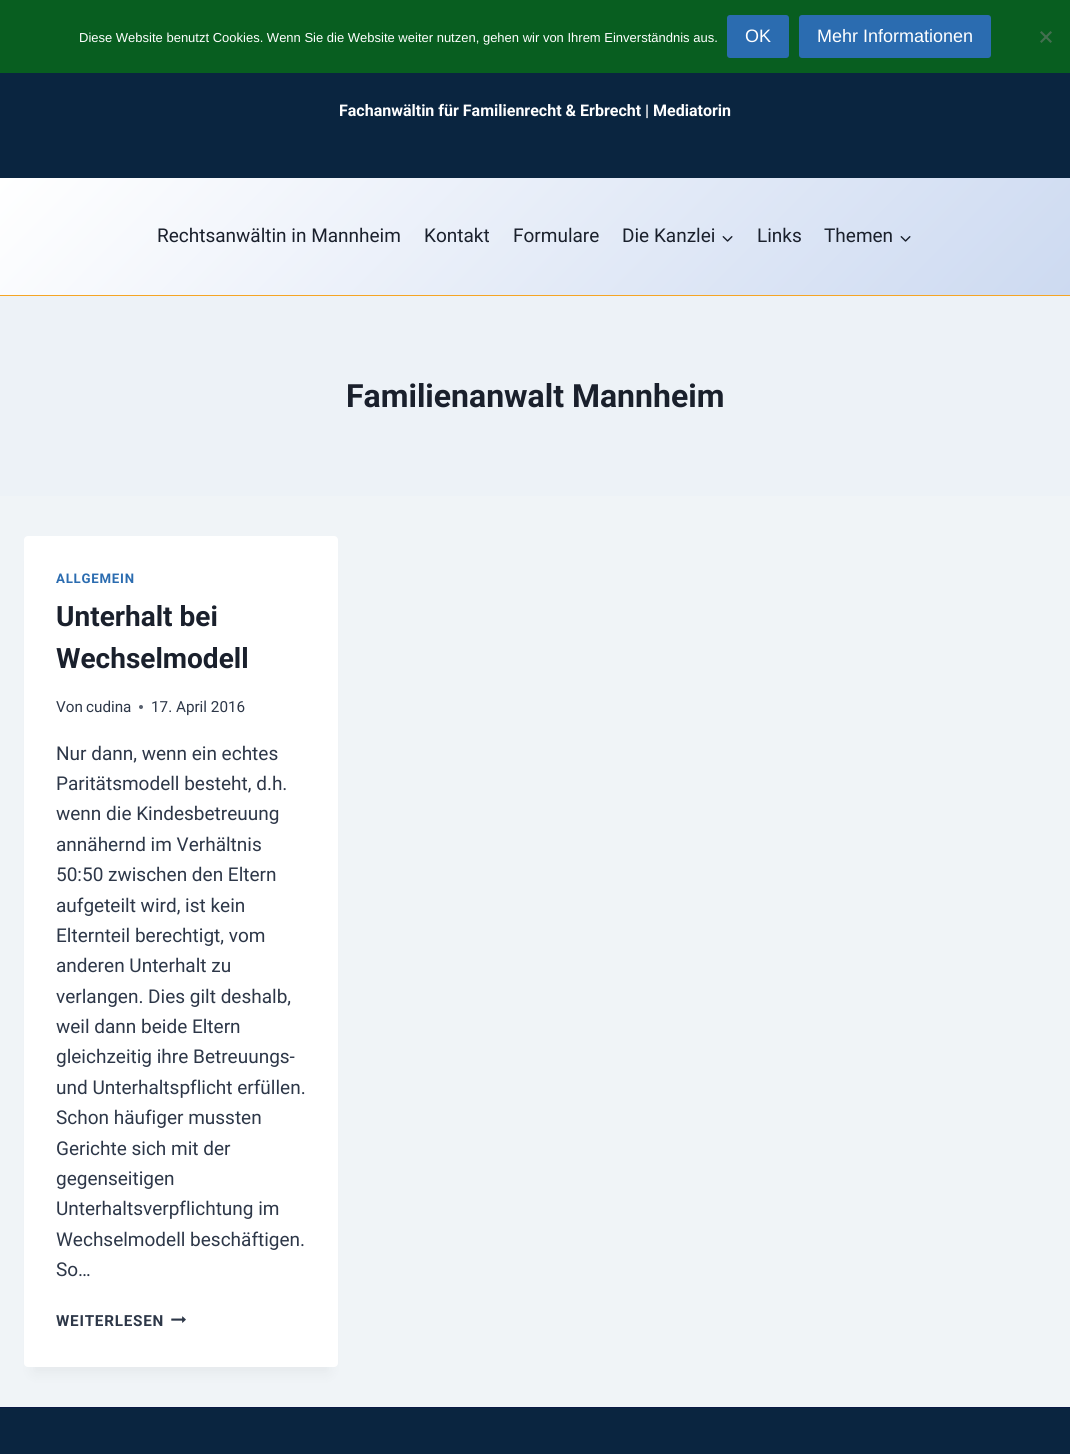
import math
import cairo

surface = cairo.ImageSurface(cairo.Format.RGB24, 1070, 1454)
ctx = cairo.Context(surface)
options = cairo.FontOptions()
options.set_hint_metrics(cairo.HintMetrics.OFF)
options.set_hint_style(cairo.HintStyle.NONE)
ctx.set_font_options(options)
ctx.set_miter_limit(4)


def ink(r, g, b):
    ctx.set_source_rgb(r / 255, g / 255, b / 255)


def write(x, y, s, family, size, color, bold=False, italic=False):
    ctx.select_font_face(family, cairo.FontSlant.ITALIC if italic else cairo.FontSlant.NORMAL, cairo.FontWeight.BOLD if bold else cairo.FontWeight.NORMAL)
    ctx.set_font_size(size)
    ink(*color)
    ctx.move_to(x, y)
    ctx.show_text(s)


def write_spaced(x, y, s, letter, word):
    ctx.move_to(x, y)
    for ch in s:
        ctx.show_text(ch)
        ctx.rel_move_to(letter + word * (ch == ' '), 0)


def block(x, y, w, h, *color):
    ink(*color)
    ctx.rectangle(x, y, w, h)
    ctx.fill()


def round_path(x, y, w, h, r):
    ctx.new_sub_path()
    for i, (u, v) in enumerate([(x + w - r, y + h - r), (x + r, y + h - r), (x + r, y + r), (x + w - r, y + r)]):
        ctx.arc(u, v, r, i * math.pi / 2, (i + 1) * math.pi / 2)
    ctx.close_path()


def blur_box(x, y, w, h, r, blur, alpha):
    ctx.push_group_with_content(cairo.Content.ALPHA)
    ctx.set_operator(cairo.Operator.SOURCE)
    for i in range(15, -16, -2):
        e = blur * i / 6
        if min(w, h) + 2 * e > 0:
            ctx.set_source_rgba(0, 0, 0, alpha * math.erfc((i - 1) / 8.5) / 2)
            round_path(x - e, y - e, w + 2 * e, h + 2 * e, max(0, min(r + e + blur * .6, min(w, h) / 2 + e)))
            ctx.fill()
    ctx.mask(ctx.pop_group())


def paste(path, x, y, w, h):
    ctx.save()
    ctx.set_source_surface(cairo.ImageSurface.create_from_png(path), x, y)
    ctx.rectangle(x, y, w, h)
    ctx.fill()
    ctx.restore()


s1 = dict(family="Liberation Sans", size=13, color=(255, 255, 255))
s2 = dict(family="Liberation Sans", size=18, color=(255, 255, 255))
s3 = dict(family="Roboto", size=16, color=(255, 255, 255), bold=True)
s4 = dict(family="Roboto", size=19, color=(26, 32, 44))
s5 = dict(family="Roboto", size=32, color=(26, 32, 44), bold=True)
s6 = dict(family="Roboto", size=28, color=(26, 32, 44), bold=True)
s7 = dict(family="Roboto", size=15.25, color=(45, 55, 72))
s8 = dict(family="Roboto", size=19, color=(45, 55, 72))

ink(240, 244, 247)
ctx.paint()
block(0, 0, 1070, 73, 8, 94, 32)
write(79, 42, "Diese Website benutzt Cookies. Wenn Sie die Website weiter nutzen, gehen wir von Ihrem Einverständnis aus.", **s1)
ink(43, 108, 176)
round_path(727, 15, 62, 43, 3)
ctx.fill()
write(745, 42, "OK", **s2)
ink(43, 108, 176)
round_path(799, 15, 192, 43, 3)
ctx.fill()
write(817, 42, "Mehr Informationen", **s2)
ink(68, 111, 80)
ctx.new_path()
ctx.move_to(1050.5, 31)
ctx.line_to(1052, 32.5)
ctx.line_to(1041.5, 43)
ctx.line_to(1040, 41.5)
ctx.close_path()
ctx.fill()
ctx.new_path()
ctx.move_to(1040, 32.5)
ctx.line_to(1041.5, 31)
ctx.line_to(1052, 41.5)
ctx.line_to(1050.5, 43)
ctx.close_path()
ctx.fill()
block(0, 73, 1070, 105, 10, 37, 64)
write(339, 116, "Fachanwältin für Familienrecht & Erbrecht | Mediatorin", **s3)
gradient = cairo.LinearGradient(238, -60, 832, 533)
gradient.add_color_stop_rgba(0, 1, 1, 1, 1)
gradient.add_color_stop_rgba(1, 0.804, 0.855, 0.945, 1)
ctx.set_source(gradient)
ctx.rectangle(0, 178, 1070, 117)
ctx.fill()
block(0, 295, 1070, 1, 245, 165, 36)
write(157, 242, "Rechtsanwältin in Mannheim", **s4)
write(424, 242, "Kontakt", **s4)
write(513, 242, "Formulare", **s4)
write(622, 242, "Die Kanzlei", **s4)
paste("pic1.png", 722, 236, 11, 6)
write(757, 242, "Links", **s4)
write(824, 242, "Themen", **s4)
paste("pic2.png", 900, 236, 11, 6)
block(0, 296, 1070, 200, 237, 242, 247)
write(346, 407, "Familienanwalt Mannheim", **s5)
ink(0, 0, 0)
blur_box(34, 561, 294, 811, 0, 7.5, 0.05)
ink(255, 255, 255)
round_path(24, 536, 314, 831, 4)
ctx.fill()
ctx.set_font_size(13.25)
ink(43, 108, 176)
write_spaced(56, 583, "ALLGEMEIN", 0.75, 0)
write(56, 626, "Unterhalt bei", **s6)
write(56, 668, "Wechselmodell", **s6)
write(56, 712, "Von", **s7)
write(86, 712, "cudina", **s7)
ink(87, 95, 109)
ctx.new_path()
ctx.arc(141, 707, 2, 0, 2 * math.pi)
ctx.fill()
write(151, 712, "17. April 2016", **s7)
write(56, 760, "Nur dann, wenn ein echtes", **s8)
write(56, 790, "Paritätsmodell besteht, d.h.", **s8)
write(56, 820, "wenn die Kindesbetreuung", **s8)
write(56, 851, "annähernd im Verhältnis", **s8)
write(56, 881, "50:50 zwischen den Eltern", **s8)
write(56, 912, "aufgeteilt wird, ist kein", **s8)
write(56, 942, "Elternteil berechtigt, vom", **s8)
write(56, 972, "anderen Unterhalt zu", **s8)
write(56, 1003, "verlangen. Dies gilt deshalb,", **s8)
write(56, 1033, "weil dann beide Eltern", **s8)
write(56, 1063, "gleichzeitig ihre Betreuungs-", **s8)
write(56, 1094, "und Unterhaltspflicht erfüllen.", **s8)
write(56, 1124, "Schon häufiger mussten", **s8)
write(56, 1155, "Gerichte sich mit der", **s8)
write(56, 1185, "gegenseitigen", **s8)
write(56, 1215, "Unterhaltsverpflichtung im", **s8)
write(56, 1246, "Wechselmodell beschäftigen.", **s8)
write(56, 1276, "So…", **s8)
ctx.select_font_face("Roboto", cairo.FontSlant.NORMAL, cairo.FontWeight.BOLD)
ctx.set_font_size(15.25)
write_spaced(56, 1326, "WEITERLESEN", 0.75, 0)
paste("pic3.png", 171, 1316, 15, 7)
block(0, 1408, 1070, 46, 10, 37, 64)
block(0, 1407, 1070, 1, 9, 26, 69)
surface.write_to_png("screenshot.png")
